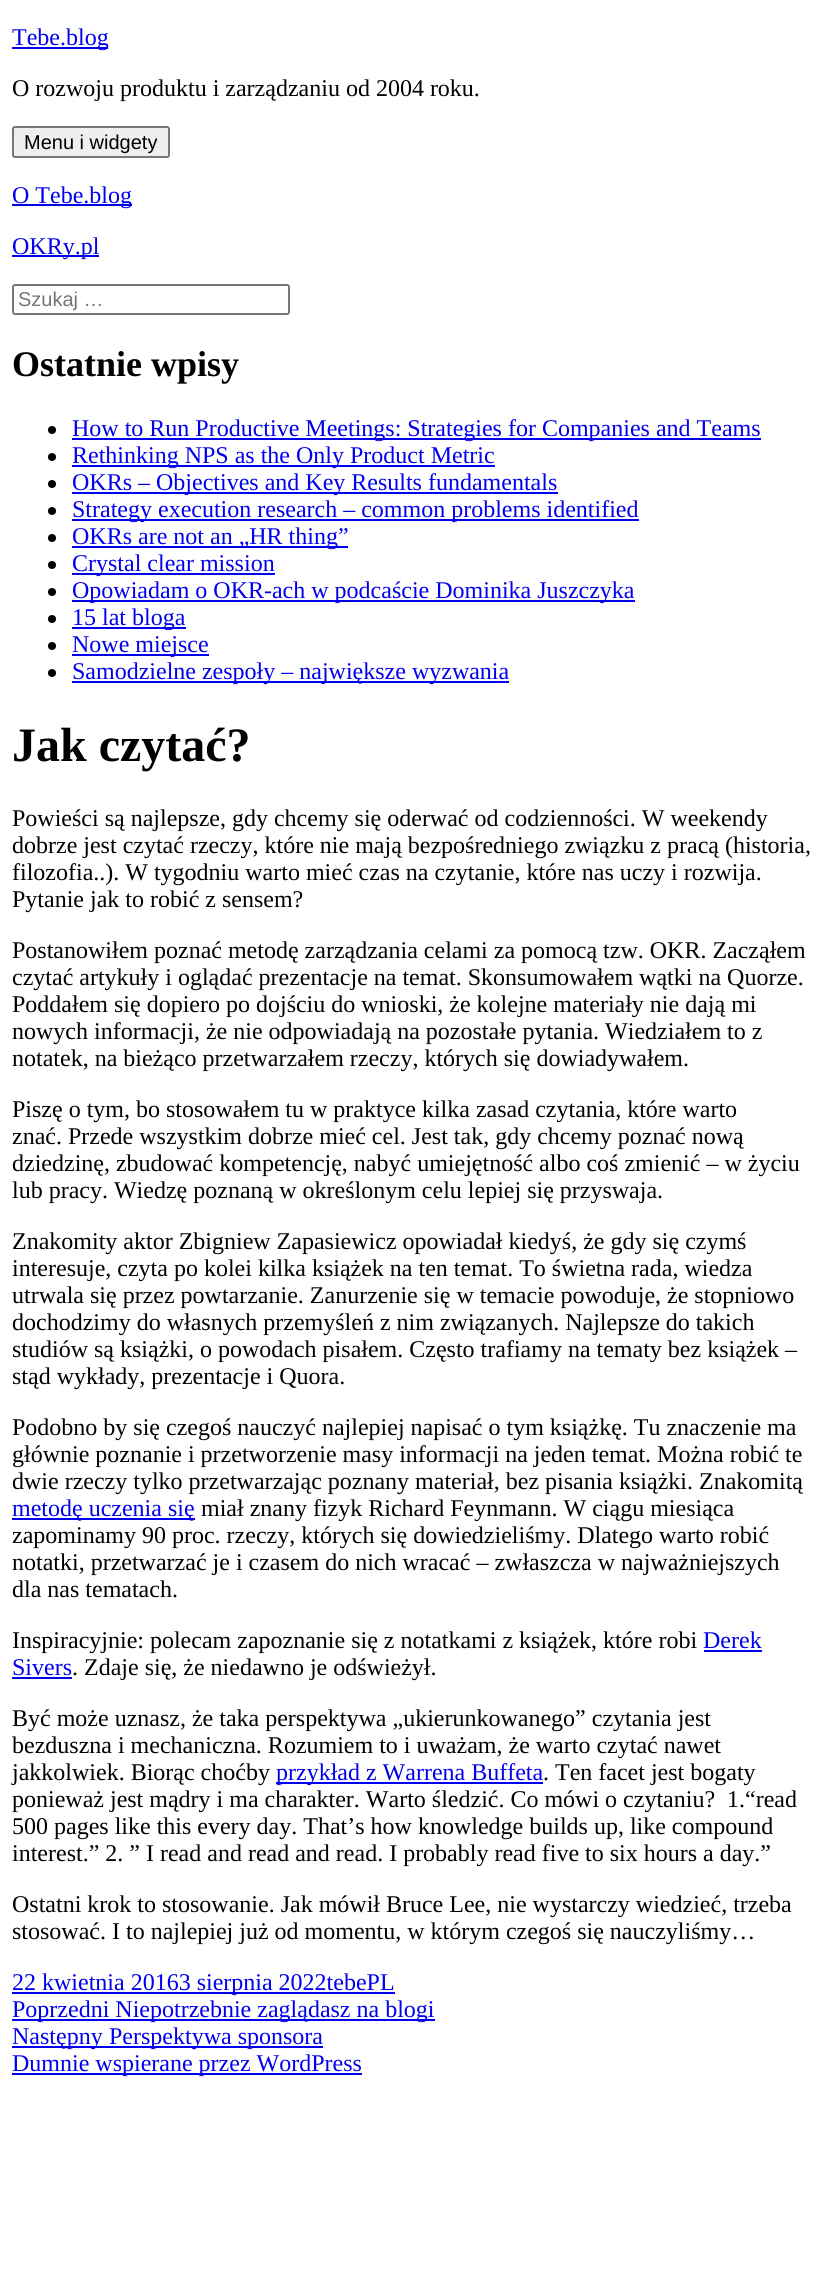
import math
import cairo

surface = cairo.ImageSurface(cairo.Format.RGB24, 825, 2274)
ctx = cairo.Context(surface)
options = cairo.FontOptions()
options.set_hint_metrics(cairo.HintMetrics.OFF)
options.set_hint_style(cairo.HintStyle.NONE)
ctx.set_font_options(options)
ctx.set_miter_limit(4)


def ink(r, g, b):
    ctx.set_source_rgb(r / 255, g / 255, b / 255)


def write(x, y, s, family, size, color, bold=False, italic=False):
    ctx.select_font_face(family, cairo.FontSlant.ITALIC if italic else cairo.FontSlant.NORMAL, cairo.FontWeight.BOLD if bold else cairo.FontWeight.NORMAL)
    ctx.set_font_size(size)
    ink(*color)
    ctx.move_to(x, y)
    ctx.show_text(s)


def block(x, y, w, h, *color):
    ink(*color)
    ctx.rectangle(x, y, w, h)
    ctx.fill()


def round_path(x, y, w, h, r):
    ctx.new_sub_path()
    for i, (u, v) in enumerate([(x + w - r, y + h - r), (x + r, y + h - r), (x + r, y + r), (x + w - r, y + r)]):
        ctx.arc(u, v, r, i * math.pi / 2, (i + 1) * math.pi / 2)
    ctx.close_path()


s1 = dict(family="Liberation Serif", size=24, color=(0, 0, 238))
s2 = dict(family="Liberation Serif", size=24, color=(0, 0, 0))
s3 = dict(family="Liberation Sans", size=20, color=(0, 0, 0))
s4 = dict(family="Liberation Sans", size=20, color=(117, 117, 117))
s5 = dict(family="Liberation Serif", size=36, color=(0, 0, 0), bold=True)
s6 = dict(family="Liberation Serif", size=48, color=(0, 0, 0), bold=True)

ink(255, 255, 255)
ctx.paint()
block(12, 47, 96, 2, 0, 0, 238)
write(12, 45, "Tebe.blog", **s1)
write(12, 96, "O rozwoju produktu i zarządzaniu od 2004 roku.", **s2)
ink(239, 239, 239)
round_path(13, 127, 156, 30, 2)
ctx.fill_preserve()
ink(118, 118, 118)
ctx.stroke()
write(24, 149, "Menu i widgety", **s3)
block(12, 204, 120, 2, 0, 0, 238)
write(12, 203, "O Tebe.blog", **s1)
block(12, 255, 87, 2, 0, 0, 238)
write(12, 254, "OKRy.pl", **s1)
round_path(13, 285, 276, 29, 2)
ink(118, 118, 118)
ctx.stroke()
write(18, 306, "Szukaj …", **s4)
write(12, 376, "Ostatnie wpisy", **s5)
ctx.new_path()
ctx.arc(52, 430, 4, 0, 2 * math.pi)
ctx.fill()
block(72, 438, 689, 2, 0, 0, 238)
write(72, 436, "How to Run Productive Meetings: Strategies for Companies and Teams", **s1)
ink(0, 0, 0)
ctx.new_path()
ctx.arc(52, 457, 4, 0, 2 * math.pi)
ctx.fill()
block(72, 465, 423, 2, 0, 0, 238)
write(72, 463, "Rethinking NPS as the Only Product Metric", **s1)
ink(0, 0, 0)
ctx.new_path()
ctx.arc(52, 484, 4, 0, 2 * math.pi)
ctx.fill()
block(72, 492, 486, 2, 0, 0, 238)
write(72, 490, "OKRs – Objectives and Key Results fundamentals", **s1)
ink(0, 0, 0)
ctx.new_path()
ctx.arc(52, 511, 4, 0, 2 * math.pi)
ctx.fill()
block(72, 519, 567, 2, 0, 0, 238)
write(72, 517, "Strategy execution research – common problems identified", **s1)
ink(0, 0, 0)
ctx.new_path()
ctx.arc(52, 538, 4, 0, 2 * math.pi)
ctx.fill()
block(72, 546, 276, 2, 0, 0, 238)
write(72, 544, "OKRs are not an „HR thing”", **s1)
ink(0, 0, 0)
ctx.new_path()
ctx.arc(52, 565, 4, 0, 2 * math.pi)
ctx.fill()
block(72, 573, 203, 2, 0, 0, 238)
write(72, 571, "Crystal clear mission", **s1)
ink(0, 0, 0)
ctx.new_path()
ctx.arc(52, 592, 4, 0, 2 * math.pi)
ctx.fill()
block(72, 600, 563, 2, 0, 0, 238)
write(72, 598, "Opowiadam o OKR-ach w podcaście Dominika Juszczyka", **s1)
ink(0, 0, 0)
ctx.new_path()
ctx.arc(52, 619, 4, 0, 2 * math.pi)
ctx.fill()
block(72, 627, 114, 2, 0, 0, 238)
write(72, 625, "15 lat bloga", **s1)
ink(0, 0, 0)
ctx.new_path()
ctx.arc(52, 646, 4, 0, 2 * math.pi)
ctx.fill()
block(72, 654, 137, 2, 0, 0, 238)
write(72, 652, "Nowe miejsce", **s1)
ink(0, 0, 0)
ctx.new_path()
ctx.arc(52, 673, 4, 0, 2 * math.pi)
ctx.fill()
block(72, 681, 437, 2, 0, 0, 238)
write(72, 679, "Samodzielne zespoły – największe wyzwania", **s1)
write(12, 761, "Jak czytać?", **s6)
write(12, 826, "Powieści są najlepsze, gdy chcemy się oderwać od codzienności. W weekendy", **s2)
write(12, 853, "dobrze jest czytać rzeczy, które nie mają bezpośredniego związku z pracą (historia,", **s2)
write(12, 880, "filozofia..). W tygodniu warto mieć czas na czytanie, które nas uczy i rozwija.", **s2)
write(12, 907, "Pytanie jak to robić z sensem?", **s2)
write(12, 958, "Postanowiłem poznać metodę zarządzania celami za pomocą tzw. OKR. Zacząłem", **s2)
write(12, 985, "czytać artykuły i oglądać prezentacje na temat. Skonsumowałem wątki na Quorze.", **s2)
write(12, 1012, "Poddałem się dopiero po dojściu do wnioski, że kolejne materiały nie dają mi", **s2)
write(12, 1039, "nowych informacji, że nie odpowiadają na pozostałe pytania. Wiedziałem to z", **s2)
write(12, 1066, "notatek, na bieżąco przetwarzałem rzeczy, których się dowiadywałem.", **s2)
write(12, 1117, "Piszę o tym, bo stosowałem tu w praktyce kilka zasad czytania, które warto", **s2)
write(12, 1144, "znać. Przede wszystkim dobrze mieć cel. Jest tak, gdy chcemy poznać nową", **s2)
write(12, 1171, "dziedzinę, zbudować kompetencję, nabyć umiejętność albo coś zmienić – w życiu", **s2)
write(12, 1198, "lub pracy. Wiedzę poznaną w określonym celu lepiej się przyswaja.", **s2)
write(12, 1249, "Znakomity aktor Zbigniew Zapasiewicz opowiadał kiedyś, że gdy się czymś", **s2)
write(12, 1276, "interesuje, czyta po kolei kilka książek na ten temat. To świetna rada, wiedza", **s2)
write(12, 1303, "utrwala się przez powtarzanie. Zanurzenie się w temacie powoduje, że stopniowo", **s2)
write(12, 1330, "dochodzimy do własnych przemyśleń z nim związanych. Najlepsze do takich", **s2)
write(12, 1357, "studiów są książki, o powodach pisałem. Często trafiamy na tematy bez książek –", **s2)
write(12, 1384, "stąd wykłady, prezentacje i Quora.", **s2)
write(12, 1435, "Podobno by się czegoś nauczyć najlepiej napisać o tym książkę. Tu znaczenie ma", **s2)
write(12, 1462, "głównie poznanie i przetworzenie masy informacji na jeden temat. Można robić te", **s2)
write(12, 1489, "dwie rzeczy tylko przetwarzając poznany materiał, bez pisania książki. Znakomitą", **s2)
block(12, 1518, 183, 2, 0, 0, 238)
write(12, 1516, "metodę uczenia się", **s1)
write(201, 1516, "miał znany fizyk Richard Feynmann. W ciągu miesiąca", **s2)
write(12, 1543, "zapominamy 90 proc. rzeczy, których się dowiedzieliśmy. Dlatego warto robić", **s2)
write(12, 1570, "notatki, przetwarzać je i czasem do nich wracać – zwłaszcza w najważniejszych", **s2)
write(12, 1597, "dla nas tematach.", **s2)
write(12, 1648, "Inspiracyjnie: polecam zapoznanie się z notatkami z książek, które robi", **s2)
write(703, 1648, "Derek", **s1)
block(704, 1650, 58, 2, 0, 0, 238)
write(12, 1675, "Sivers", **s1)
block(12, 1677, 60, 2, 0, 0, 238)
write(72, 1675, ". Zdaje się, że niedawno je odświeżył.", **s2)
write(12, 1726, "Być może uznasz, że taka perspektywa „ukierunkowanego” czytania jest", **s2)
write(12, 1753, "bezduszna i mechaniczna. Rozumiem to i uważam, że warto czytać nawet", **s2)
write(12, 1780, "jakkolwiek. Biorąc choćby", **s2)
block(276, 1782, 267, 2, 0, 0, 238)
write(276, 1780, "przykład z Warrena Buffeta", **s1)
write(543, 1780, ". Ten facet jest bogaty", **s2)
write(12, 1807, "ponieważ jest mądry i ma charakter. Warto śledzić. Co mówi o czytaniu?  1.“read", **s2)
write(12, 1834, "500 pages like this every day. That’s how knowledge builds up, like compound", **s2)
write(12, 1861, "interest.” 2. ” I read and read and read. I probably read five to six hours a day.”", **s2)
write(12, 1912, "Ostatni krok to stosowanie. Jak mówił Bruce Lee, nie wystarczy wiedzieć, trzeba", **s2)
write(12, 1939, "stosować. I to najlepiej już od momentu, w którym czegoś się nauczyliśmy…", **s2)
block(12, 1992, 383, 2, 0, 0, 238)
write(12, 1990, "22 kwietnia 20163 sierpnia 2022tebePL", **s1)
block(12, 2019, 423, 2, 0, 0, 238)
write(12, 2017, "Poprzedni Niepotrzebnie zaglądasz na blogi", **s1)
block(12, 2046, 90, 2, 0, 0, 238)
write(12, 2044, "Następny", **s1)
block(102, 2046, 221, 2, 0, 0, 238)
write(109, 2044, "Perspektywa sponsora", **s1)
block(12, 2073, 350, 2, 0, 0, 238)
write(12, 2071, "Dumnie wspierane przez WordPress", **s1)
surface.write_to_png("screenshot.png")
